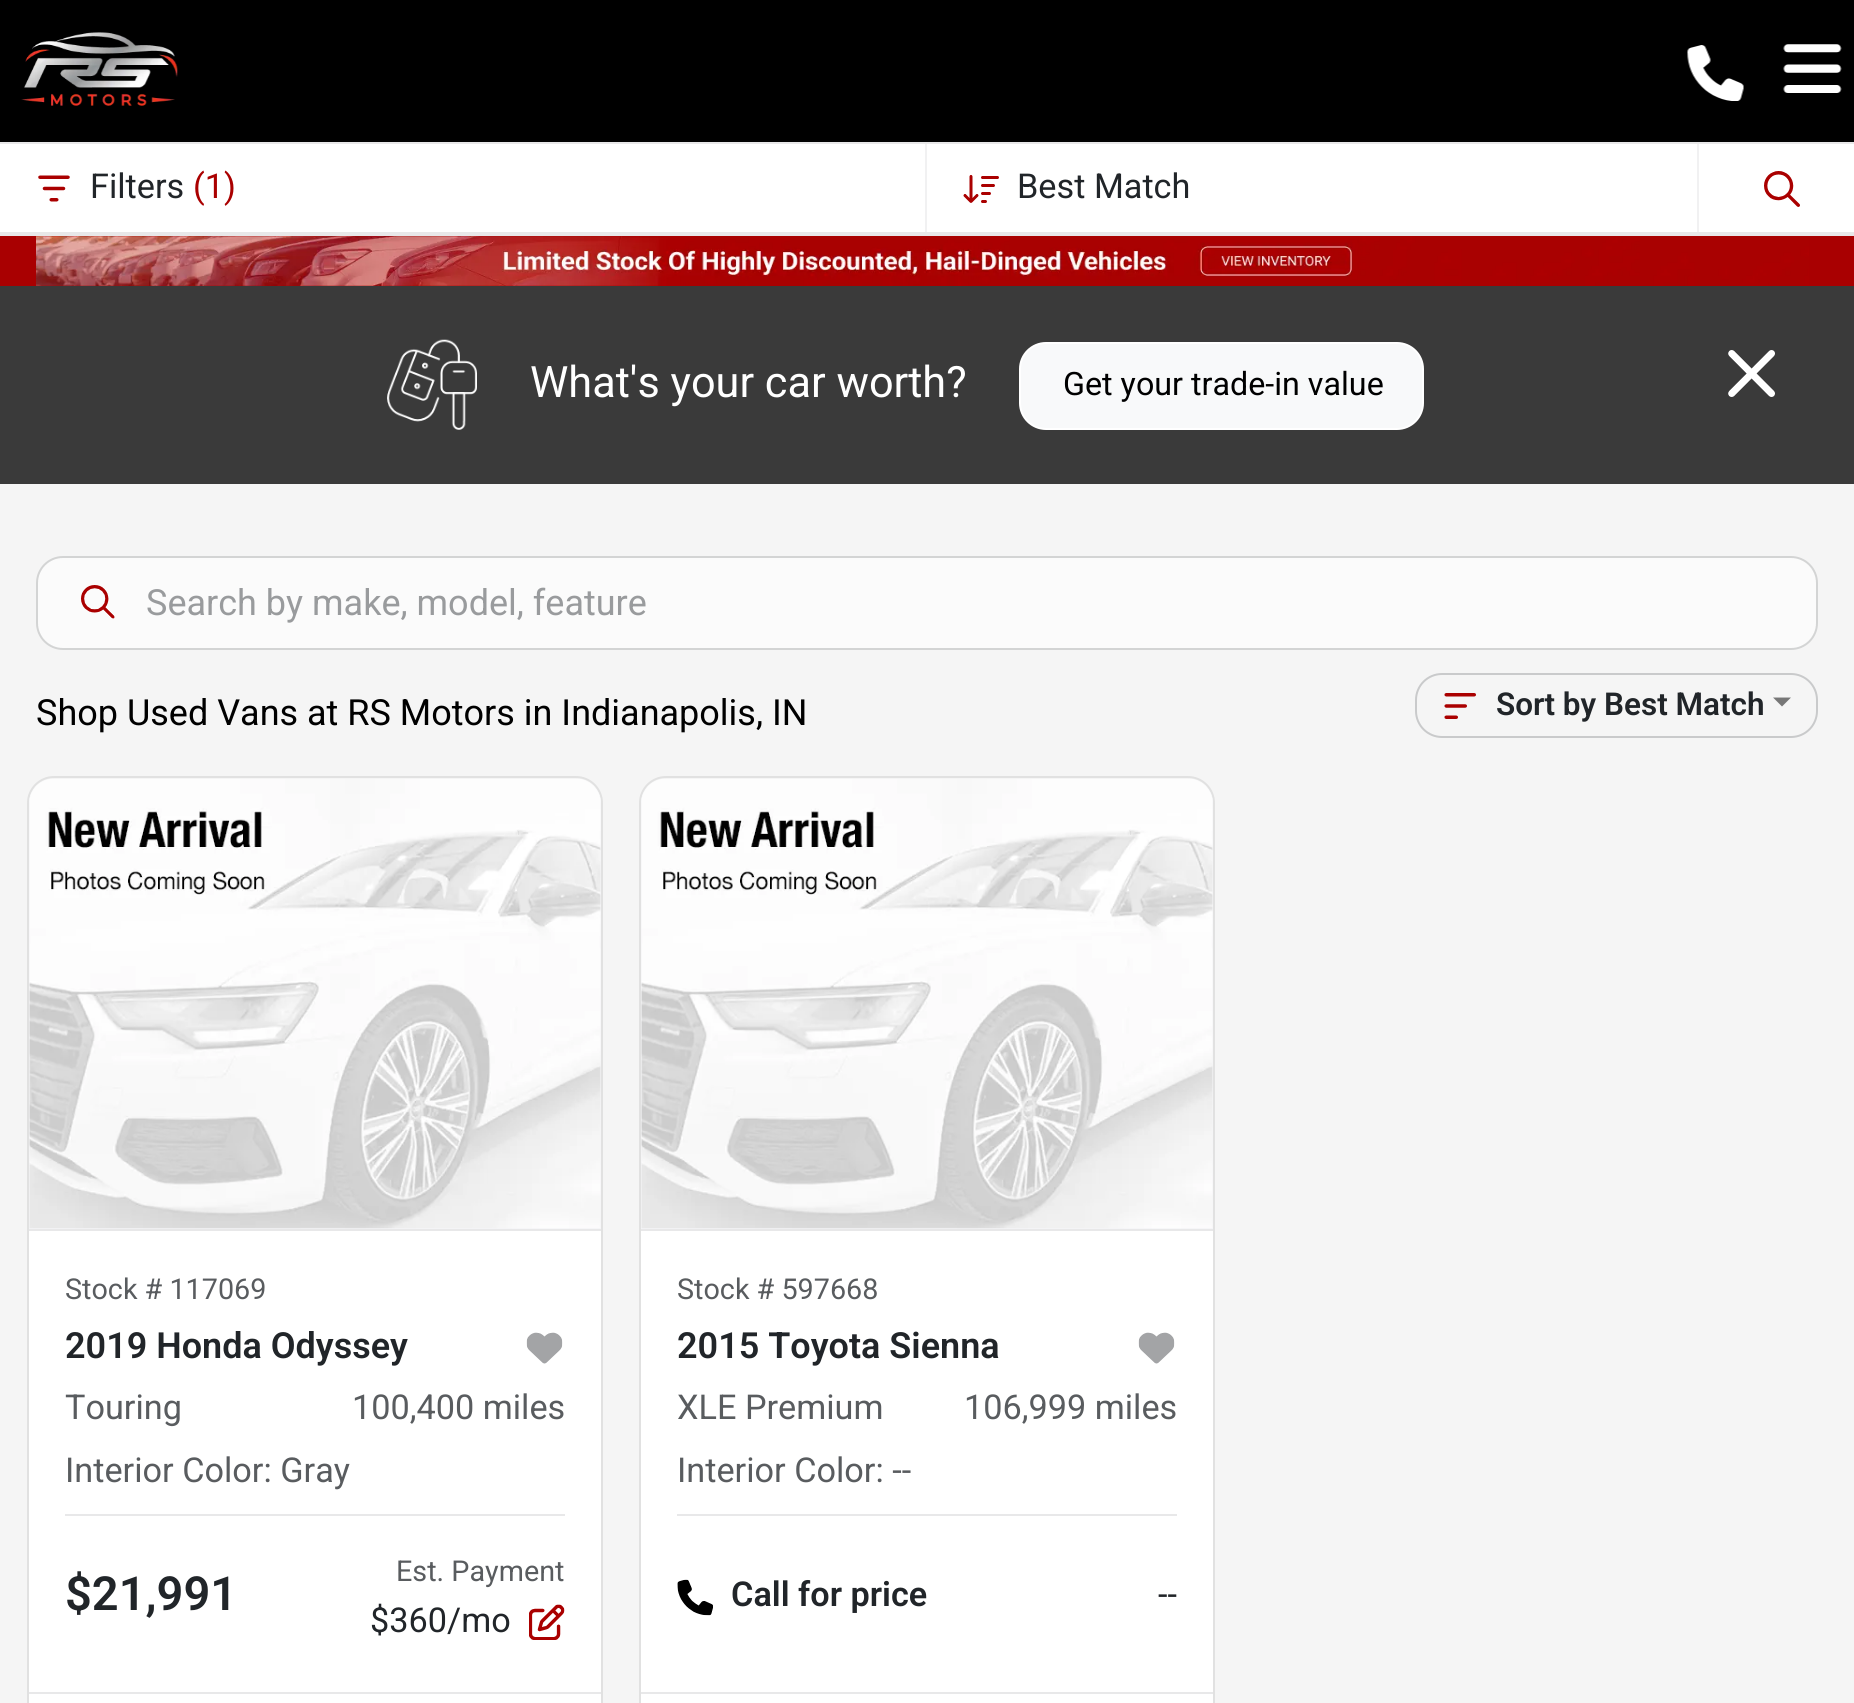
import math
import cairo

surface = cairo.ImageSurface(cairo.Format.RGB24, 1854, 1703)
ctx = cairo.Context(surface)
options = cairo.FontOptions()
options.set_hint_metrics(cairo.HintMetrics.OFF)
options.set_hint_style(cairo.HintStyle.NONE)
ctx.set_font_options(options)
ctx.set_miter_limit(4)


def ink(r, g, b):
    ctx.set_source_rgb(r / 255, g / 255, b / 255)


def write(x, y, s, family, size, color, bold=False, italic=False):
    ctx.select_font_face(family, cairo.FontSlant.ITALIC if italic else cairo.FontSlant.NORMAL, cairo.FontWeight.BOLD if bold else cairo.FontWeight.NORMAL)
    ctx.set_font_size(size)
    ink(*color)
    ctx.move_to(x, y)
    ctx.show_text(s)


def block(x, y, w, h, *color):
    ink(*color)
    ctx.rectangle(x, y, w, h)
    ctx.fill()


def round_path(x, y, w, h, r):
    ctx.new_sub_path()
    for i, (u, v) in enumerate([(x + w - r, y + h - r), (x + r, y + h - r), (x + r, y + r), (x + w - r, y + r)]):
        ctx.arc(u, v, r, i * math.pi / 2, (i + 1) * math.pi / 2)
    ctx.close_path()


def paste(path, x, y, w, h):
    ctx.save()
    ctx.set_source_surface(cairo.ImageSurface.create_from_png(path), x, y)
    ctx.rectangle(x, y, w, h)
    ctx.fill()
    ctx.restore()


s1 = dict(family="Roboto", size=34.25, color=(33, 37, 41))
s2 = dict(family="Roboto", size=34.25, color=(170, 0, 0))
s3 = dict(family="Roboto", size=43.25, color=(255, 255, 255))
s4 = dict(family="Roboto", size=32.25, color=(0, 0, 0))
s5 = dict(family="Roboto", size=36, color=(153, 155, 157))
s6 = dict(family="Roboto", size=36, color=(0, 0, 0))
s7 = dict(family="Roboto SemiBold", size=31.5, color=(33, 37, 41))
s8 = dict(family="Roboto", size=28.75, color=(89, 92, 95))
s9 = dict(family="Roboto SemiBold", size=36, color=(33, 37, 41))
s10 = dict(family="Roboto", size=34.25, color=(89, 92, 95))
s11 = dict(family="Roboto SemiBold", size=47, color=(33, 37, 41))
s12 = dict(family="Roboto SemiBold", size=34.25, color=(33, 37, 41))

ink(245, 245, 245)
ctx.paint()
block(0, 0, 1854, 140, 0, 0, 0)
block(0, 140, 1854, 2, 2, 3, 3)
paste("pic1.png", 21, 32, 157, 74)
paste("pic2.png", 1687, 45, 57, 56)
paste("pic3.png", 1783, 44, 59, 49)
block(0, 144, 1854, 88, 255, 255, 255)
block(0, 232, 1854, 4, 232, 232, 233)
block(0, 142, 1854, 2, 232, 232, 233)
paste("pic4.png", 38, 175, 32, 27)
write(90, 198, "Filters", **s1)
write(193, 198, "(1)", **s2)
block(925, 144, 2, 88, 241, 241, 242)
paste("pic5.png", 963, 175, 36, 28)
write(1017, 198, "Best Match", **s1)
block(1697, 144, 2, 88, 241, 241, 242)
paste("pic6.png", 1764, 171, 36, 36)
block(0, 286, 1854, 198, 58, 58, 58)
paste("pic7.png", 387, 339, 90, 91)
write(530, 397, "What's your car worth?", **s3)
ink(248, 249, 250)
round_path(1020, 343, 403, 86, 26)
ctx.fill_preserve()
ink(255, 255, 255)
ctx.stroke()
write(1063, 395, "Get your trade-in value", **s4)
paste("pic8.png", 1728, 350, 47, 47)
ink(251, 251, 251)
round_path(38, 558, 1778, 90, 25)
ctx.fill()
round_path(37, 557, 1780, 92, 26)
ctx.set_source_rgba(0.094, 0.11, 0.129, 0.15)
ctx.stroke()
paste("pic9.png", 81, 585, 34, 34)
write(146, 615, "Search by make, model, feature", **s5)
write(36, 725, "Shop Used Vans at RS Motors in Indianapolis, IN", **s6)
round_path(1416, 674, 401, 63, 26)
ink(201, 202, 203)
ctx.stroke()
paste("pic10.png", 1444, 693, 32, 26)
write(1496, 715, "Sort by Best Match", **s7)
ink(119, 119, 119)
ctx.new_path()
ctx.move_to(1773, 697.5)
ctx.line_to(1791, 697.5)
ctx.line_to(1782, 706.5)
ctx.close_path()
ctx.fill()
ink(255, 255, 255)
round_path(29, 779, 572, 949, 25)
ctx.fill()
round_path(28, 777, 574, 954, 26)
ink(225, 225, 225)
ctx.stroke()
block(29, 1229, 572, 2, 232, 232, 233)
ink(244, 245, 247)
ctx.new_path()
ctx.move_to(54, 779)
ctx.line_to(576, 779)
ctx.curve_to(590, 779, 601, 790, 601, 804)
ctx.line_to(601, 1229)
ctx.line_to(29, 1229)
ctx.line_to(29, 804)
ctx.curve_to(29, 790, 40, 779, 54, 779)
ctx.close_path()
ctx.fill()
paste("pic11.png", 29, 779, 572, 450)
write(65, 1299, "Stock # 117069", **s8)
write(65, 1358, "2019 Honda Odyssey", **s9)
paste("pic12.png", 526, 1332, 37, 32)
write(65, 1419, "Touring", **s10)
write(352, 1419, "100,400 miles", **s10)
write(65, 1482, "Interior Color: Gray", **s10)
block(65, 1514, 500, 2, 232, 232, 233)
write(65, 1610, "$21,991", **s11)
write(396, 1581, "Est. Payment", **s8)
write(370, 1632, "$360/mo", **s1)
paste("pic13.png", 529, 1604, 36, 36)
block(29, 1692, 572, 2, 232, 232, 233)
ink(255, 255, 255)
round_path(641, 779, 572, 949, 25)
ctx.fill()
round_path(640, 777, 574, 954, 26)
ink(225, 225, 225)
ctx.stroke()
block(641, 1229, 572, 2, 232, 232, 233)
ink(244, 245, 247)
ctx.new_path()
ctx.move_to(666, 779)
ctx.line_to(1188, 779)
ctx.curve_to(1202, 779, 1213, 790, 1213, 804)
ctx.line_to(1213, 1229)
ctx.line_to(641, 1229)
ctx.line_to(641, 804)
ctx.curve_to(641, 790, 652, 779, 666, 779)
ctx.close_path()
ctx.fill()
paste("pic11.png", 641, 779, 572, 450)
write(677, 1299, "Stock # 597668", **s8)
write(677, 1358, "2015 Toyota Sienna", **s9)
paste("pic12.png", 1138, 1332, 37, 32)
write(677, 1419, "XLE Premium", **s10)
write(964, 1419, "106,999 miles", **s10)
write(677, 1482, "Interior Color: --", **s10)
block(677, 1514, 500, 2, 232, 232, 233)
paste("pic14.png", 677, 1579, 36, 37)
write(731, 1606, "Call for price", **s12)
write(1158, 1606, "--", **s1)
block(641, 1692, 572, 2, 232, 232, 233)
block(0, 236, 1854, 50, 169, 0, 1)
paste("pic15.png", 36, 236, 1773, 50)
surface.write_to_png("screenshot.png")
